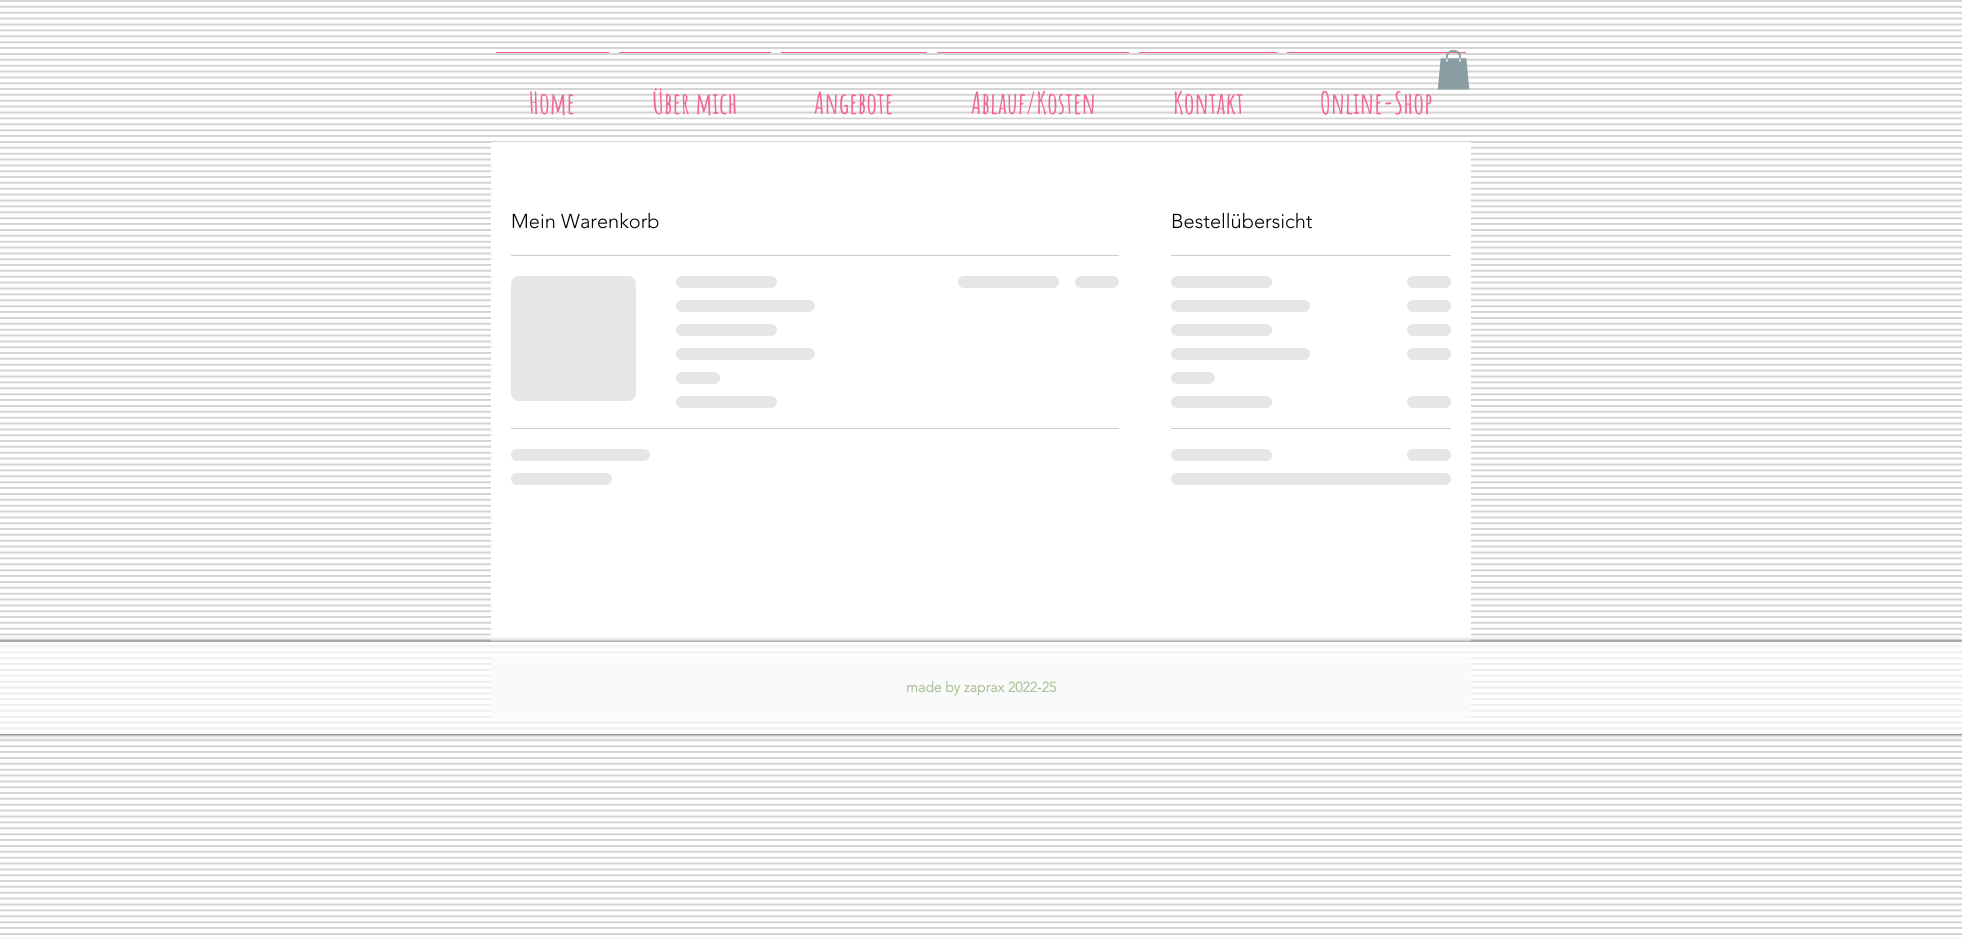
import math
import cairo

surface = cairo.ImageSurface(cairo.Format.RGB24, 1962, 939)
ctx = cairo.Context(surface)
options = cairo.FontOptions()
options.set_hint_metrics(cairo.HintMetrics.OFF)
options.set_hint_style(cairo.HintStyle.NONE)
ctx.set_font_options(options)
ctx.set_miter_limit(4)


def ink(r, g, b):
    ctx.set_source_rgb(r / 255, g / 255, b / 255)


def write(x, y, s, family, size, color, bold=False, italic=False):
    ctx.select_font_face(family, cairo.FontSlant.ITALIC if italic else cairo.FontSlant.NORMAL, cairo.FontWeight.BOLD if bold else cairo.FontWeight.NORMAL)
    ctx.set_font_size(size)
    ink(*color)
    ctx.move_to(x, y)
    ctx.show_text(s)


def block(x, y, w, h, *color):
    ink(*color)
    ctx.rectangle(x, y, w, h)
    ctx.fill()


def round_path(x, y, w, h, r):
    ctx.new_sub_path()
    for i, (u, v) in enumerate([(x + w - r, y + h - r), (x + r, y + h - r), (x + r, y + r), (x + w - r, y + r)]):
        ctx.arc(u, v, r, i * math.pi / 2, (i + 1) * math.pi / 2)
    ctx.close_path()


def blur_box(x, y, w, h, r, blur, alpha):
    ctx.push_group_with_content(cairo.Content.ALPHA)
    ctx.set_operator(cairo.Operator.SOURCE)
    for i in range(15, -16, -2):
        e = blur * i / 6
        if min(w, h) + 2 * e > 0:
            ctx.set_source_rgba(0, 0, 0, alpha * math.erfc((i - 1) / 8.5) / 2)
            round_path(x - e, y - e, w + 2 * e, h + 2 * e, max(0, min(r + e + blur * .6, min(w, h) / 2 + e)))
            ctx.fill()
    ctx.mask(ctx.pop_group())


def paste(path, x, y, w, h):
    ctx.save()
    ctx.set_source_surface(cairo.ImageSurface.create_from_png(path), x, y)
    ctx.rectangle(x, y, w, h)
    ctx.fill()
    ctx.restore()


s1 = dict(family="Amatic SC", size=30, color=(242, 102, 143), bold=True)
s2 = dict(family="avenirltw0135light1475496 Light", size=20, color=(0, 0, 0))
s3 = dict(family="avenirltw0135light1475496", size=14, color=(174, 194, 155), bold=True)

ink(255, 255, 255)
ctx.paint()
paste("pic1.png", 0, 0, 1962, 939)
block(1287, 52, 179, 1, 242, 102, 143)
paste("pic2.png", 1437, 50, 33, 40)
block(496, 52, 113, 1, 242, 102, 143)
write(529, 114, "Home", **s1)
block(619, 52, 152, 1, 242, 102, 143)
write(652, 114, "Über mich", **s1)
block(781, 52, 146, 1, 242, 102, 143)
write(814, 114, "Angebote", **s1)
block(937, 52, 192, 1, 242, 102, 143)
write(971, 114, "Ablauf/Kosten", **s1)
block(1139, 52, 138, 1, 242, 102, 143)
write(1173, 114, "Kontakt", **s1)
write(1320, 114, "Online-Shop", **s1)
block(491, 142, 980, 500, 255, 255, 255)
block(511, 255, 608, 1, 204, 204, 204)
write(511, 228, "Mein Warenkorb", **s2)
gradient = cairo.LinearGradient(511, 339, 1011, 339)
gradient.add_color_stop_rgba(0.25, 0.902, 0.902, 0.902, 1)
gradient.add_color_stop_rgba(0.37, 0.8, 0.8, 0.8, 1)
gradient.add_color_stop_rgba(0.63, 0.902, 0.902, 0.902, 1)
ctx.set_source(gradient)
round_path(511, 276, 125, 125, 8)
ctx.fill()
gradient = cairo.LinearGradient(676, 282, 1080, 282)
gradient.add_color_stop_rgba(0.25, 0.902, 0.902, 0.902, 1)
gradient.add_color_stop_rgba(0.37, 0.8, 0.8, 0.8, 1)
gradient.add_color_stop_rgba(0.63, 0.902, 0.902, 0.902, 1)
ctx.set_source(gradient)
round_path(676, 276, 101, 12, 6)
ctx.fill()
gradient = cairo.LinearGradient(676, 306, 1232, 306)
gradient.add_color_stop_rgba(0.25, 0.902, 0.902, 0.902, 1)
gradient.add_color_stop_rgba(0.37, 0.8, 0.8, 0.8, 1)
gradient.add_color_stop_rgba(0.63, 0.902, 0.902, 0.902, 1)
ctx.set_source(gradient)
round_path(676, 300, 139, 12, 6)
ctx.fill()
gradient = cairo.LinearGradient(676, 330, 1080, 330)
gradient.add_color_stop_rgba(0.25, 0.902, 0.902, 0.902, 1)
gradient.add_color_stop_rgba(0.37, 0.8, 0.8, 0.8, 1)
gradient.add_color_stop_rgba(0.63, 0.902, 0.902, 0.902, 1)
ctx.set_source(gradient)
round_path(676, 324, 101, 12, 6)
ctx.fill()
gradient = cairo.LinearGradient(676, 354, 1232, 354)
gradient.add_color_stop_rgba(0.25, 0.902, 0.902, 0.902, 1)
gradient.add_color_stop_rgba(0.37, 0.8, 0.8, 0.8, 1)
gradient.add_color_stop_rgba(0.63, 0.902, 0.902, 0.902, 1)
ctx.set_source(gradient)
round_path(676, 348, 139, 12, 6)
ctx.fill()
gradient = cairo.LinearGradient(676, 378, 852, 378)
gradient.add_color_stop_rgba(0.25, 0.902, 0.902, 0.902, 1)
gradient.add_color_stop_rgba(0.37, 0.8, 0.8, 0.8, 1)
gradient.add_color_stop_rgba(0.63, 0.902, 0.902, 0.902, 1)
ctx.set_source(gradient)
round_path(676, 372, 44, 12, 6)
ctx.fill()
gradient = cairo.LinearGradient(676, 402, 1080, 402)
gradient.add_color_stop_rgba(0.25, 0.902, 0.902, 0.902, 1)
gradient.add_color_stop_rgba(0.37, 0.8, 0.8, 0.8, 1)
gradient.add_color_stop_rgba(0.63, 0.902, 0.902, 0.902, 1)
ctx.set_source(gradient)
round_path(676, 396, 101, 12, 6)
ctx.fill()
gradient = cairo.LinearGradient(958, 282, 1362, 282)
gradient.add_color_stop_rgba(0.25, 0.902, 0.902, 0.902, 1)
gradient.add_color_stop_rgba(0.37, 0.8, 0.8, 0.8, 1)
gradient.add_color_stop_rgba(0.63, 0.902, 0.902, 0.902, 1)
ctx.set_source(gradient)
round_path(958, 276, 101, 12, 6)
ctx.fill()
gradient = cairo.LinearGradient(1075, 282, 1251, 282)
gradient.add_color_stop_rgba(0.25, 0.902, 0.902, 0.902, 1)
gradient.add_color_stop_rgba(0.37, 0.8, 0.8, 0.8, 1)
gradient.add_color_stop_rgba(0.63, 0.902, 0.902, 0.902, 1)
ctx.set_source(gradient)
round_path(1075, 276, 44, 12, 6)
ctx.fill()
block(511, 428, 608, 1, 204, 204, 204)
gradient = cairo.LinearGradient(511, 455, 1067, 455)
gradient.add_color_stop_rgba(0.25, 0.902, 0.902, 0.902, 1)
gradient.add_color_stop_rgba(0.37, 0.8, 0.8, 0.8, 1)
gradient.add_color_stop_rgba(0.63, 0.902, 0.902, 0.902, 1)
ctx.set_source(gradient)
round_path(511, 449, 139, 12, 6)
ctx.fill()
gradient = cairo.LinearGradient(511, 479, 915, 479)
gradient.add_color_stop_rgba(0.25, 0.902, 0.902, 0.902, 1)
gradient.add_color_stop_rgba(0.37, 0.8, 0.8, 0.8, 1)
gradient.add_color_stop_rgba(0.63, 0.902, 0.902, 0.902, 1)
ctx.set_source(gradient)
round_path(511, 473, 101, 12, 6)
ctx.fill()
block(1171, 255, 280, 1, 204, 204, 204)
write(1171, 228, "Bestellübersicht", **s2)
gradient = cairo.LinearGradient(1171, 282, 1575, 282)
gradient.add_color_stop_rgba(0.25, 0.902, 0.902, 0.902, 1)
gradient.add_color_stop_rgba(0.37, 0.8, 0.8, 0.8, 1)
gradient.add_color_stop_rgba(0.63, 0.902, 0.902, 0.902, 1)
ctx.set_source(gradient)
round_path(1171, 276, 101, 12, 6)
ctx.fill()
gradient = cairo.LinearGradient(1407, 282, 1583, 282)
gradient.add_color_stop_rgba(0.25, 0.902, 0.902, 0.902, 1)
gradient.add_color_stop_rgba(0.37, 0.8, 0.8, 0.8, 1)
gradient.add_color_stop_rgba(0.63, 0.902, 0.902, 0.902, 1)
ctx.set_source(gradient)
round_path(1407, 276, 44, 12, 6)
ctx.fill()
gradient = cairo.LinearGradient(1171, 306, 1727, 306)
gradient.add_color_stop_rgba(0.25, 0.902, 0.902, 0.902, 1)
gradient.add_color_stop_rgba(0.37, 0.8, 0.8, 0.8, 1)
gradient.add_color_stop_rgba(0.63, 0.902, 0.902, 0.902, 1)
ctx.set_source(gradient)
round_path(1171, 300, 139, 12, 6)
ctx.fill()
gradient = cairo.LinearGradient(1407, 306, 1583, 306)
gradient.add_color_stop_rgba(0.25, 0.902, 0.902, 0.902, 1)
gradient.add_color_stop_rgba(0.37, 0.8, 0.8, 0.8, 1)
gradient.add_color_stop_rgba(0.63, 0.902, 0.902, 0.902, 1)
ctx.set_source(gradient)
round_path(1407, 300, 44, 12, 6)
ctx.fill()
gradient = cairo.LinearGradient(1171, 330, 1575, 330)
gradient.add_color_stop_rgba(0.25, 0.902, 0.902, 0.902, 1)
gradient.add_color_stop_rgba(0.37, 0.8, 0.8, 0.8, 1)
gradient.add_color_stop_rgba(0.63, 0.902, 0.902, 0.902, 1)
ctx.set_source(gradient)
round_path(1171, 324, 101, 12, 6)
ctx.fill()
gradient = cairo.LinearGradient(1407, 330, 1583, 330)
gradient.add_color_stop_rgba(0.25, 0.902, 0.902, 0.902, 1)
gradient.add_color_stop_rgba(0.37, 0.8, 0.8, 0.8, 1)
gradient.add_color_stop_rgba(0.63, 0.902, 0.902, 0.902, 1)
ctx.set_source(gradient)
round_path(1407, 324, 44, 12, 6)
ctx.fill()
gradient = cairo.LinearGradient(1171, 354, 1727, 354)
gradient.add_color_stop_rgba(0.25, 0.902, 0.902, 0.902, 1)
gradient.add_color_stop_rgba(0.37, 0.8, 0.8, 0.8, 1)
gradient.add_color_stop_rgba(0.63, 0.902, 0.902, 0.902, 1)
ctx.set_source(gradient)
round_path(1171, 348, 139, 12, 6)
ctx.fill()
gradient = cairo.LinearGradient(1407, 354, 1583, 354)
gradient.add_color_stop_rgba(0.25, 0.902, 0.902, 0.902, 1)
gradient.add_color_stop_rgba(0.37, 0.8, 0.8, 0.8, 1)
gradient.add_color_stop_rgba(0.63, 0.902, 0.902, 0.902, 1)
ctx.set_source(gradient)
round_path(1407, 348, 44, 12, 6)
ctx.fill()
gradient = cairo.LinearGradient(1171, 378, 1347, 378)
gradient.add_color_stop_rgba(0.25, 0.902, 0.902, 0.902, 1)
gradient.add_color_stop_rgba(0.37, 0.8, 0.8, 0.8, 1)
gradient.add_color_stop_rgba(0.63, 0.902, 0.902, 0.902, 1)
ctx.set_source(gradient)
round_path(1171, 372, 44, 12, 6)
ctx.fill()
gradient = cairo.LinearGradient(1171, 402, 1575, 402)
gradient.add_color_stop_rgba(0.25, 0.902, 0.902, 0.902, 1)
gradient.add_color_stop_rgba(0.37, 0.8, 0.8, 0.8, 1)
gradient.add_color_stop_rgba(0.63, 0.902, 0.902, 0.902, 1)
ctx.set_source(gradient)
round_path(1171, 396, 101, 12, 6)
ctx.fill()
gradient = cairo.LinearGradient(1407, 402, 1583, 402)
gradient.add_color_stop_rgba(0.25, 0.902, 0.902, 0.902, 1)
gradient.add_color_stop_rgba(0.37, 0.8, 0.8, 0.8, 1)
gradient.add_color_stop_rgba(0.63, 0.902, 0.902, 0.902, 1)
ctx.set_source(gradient)
round_path(1407, 396, 44, 12, 6)
ctx.fill()
block(1171, 428, 280, 1, 204, 204, 204)
gradient = cairo.LinearGradient(1171, 455, 1575, 455)
gradient.add_color_stop_rgba(0.25, 0.902, 0.902, 0.902, 1)
gradient.add_color_stop_rgba(0.37, 0.8, 0.8, 0.8, 1)
gradient.add_color_stop_rgba(0.63, 0.902, 0.902, 0.902, 1)
ctx.set_source(gradient)
round_path(1171, 449, 101, 12, 6)
ctx.fill()
gradient = cairo.LinearGradient(1407, 455, 1583, 455)
gradient.add_color_stop_rgba(0.25, 0.902, 0.902, 0.902, 1)
gradient.add_color_stop_rgba(0.37, 0.8, 0.8, 0.8, 1)
gradient.add_color_stop_rgba(0.63, 0.902, 0.902, 0.902, 1)
ctx.set_source(gradient)
round_path(1407, 449, 44, 12, 6)
ctx.fill()
gradient = cairo.LinearGradient(1171, 479, 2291, 479)
gradient.add_color_stop_rgba(0.25, 0.902, 0.902, 0.902, 1)
gradient.add_color_stop_rgba(0.37, 0.8, 0.8, 0.8, 1)
gradient.add_color_stop_rgba(0.63, 0.902, 0.902, 0.902, 1)
ctx.set_source(gradient)
round_path(1171, 473, 280, 12, 6)
ctx.fill()
ctx.save()
ctx.set_fill_rule(cairo.FillRule.EVEN_ODD)
ctx.new_path()
ctx.move_to(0, 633)
ctx.line_to(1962, 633)
ctx.line_to(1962, 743)
ctx.line_to(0, 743)
ctx.close_path()
ctx.move_to(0, 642)
ctx.line_to(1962, 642)
ctx.line_to(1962, 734)
ctx.line_to(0, 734)
ctx.close_path()
ctx.clip()
ink(0, 0, 0)
blur_box(0, 642, 1962, 92, 0, 2.5, 0.7)
ctx.restore()
ctx.set_source_rgba(1, 1, 1, 0.6)
ctx.rectangle(0, 645, 1962, 89)
ctx.fill()
block(491, 657, 980, 62, 250, 250, 250)
write(906, 692, "made by zaprax 2022-25", **s3)
surface.write_to_png("screenshot.png")
